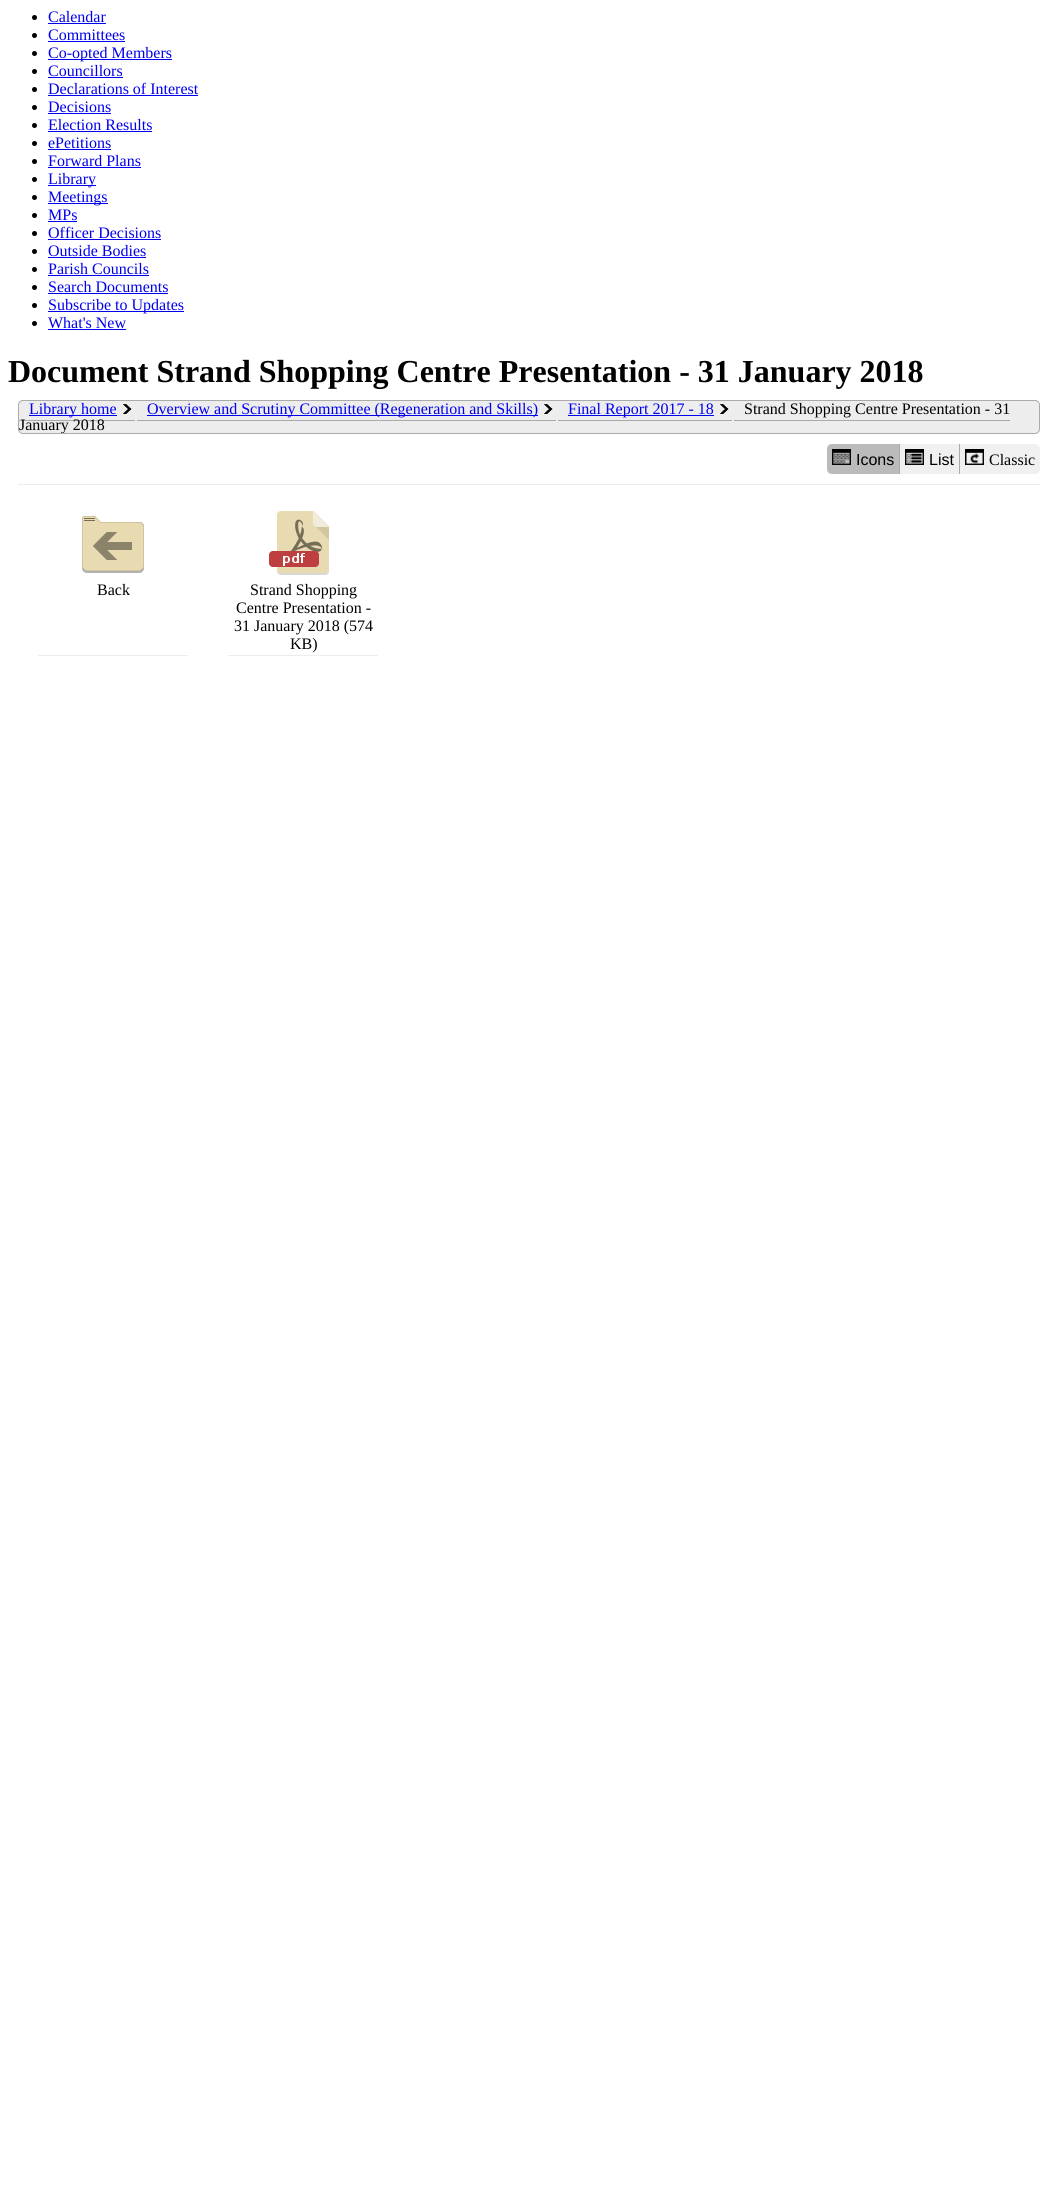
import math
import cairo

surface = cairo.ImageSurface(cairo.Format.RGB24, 1048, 2188)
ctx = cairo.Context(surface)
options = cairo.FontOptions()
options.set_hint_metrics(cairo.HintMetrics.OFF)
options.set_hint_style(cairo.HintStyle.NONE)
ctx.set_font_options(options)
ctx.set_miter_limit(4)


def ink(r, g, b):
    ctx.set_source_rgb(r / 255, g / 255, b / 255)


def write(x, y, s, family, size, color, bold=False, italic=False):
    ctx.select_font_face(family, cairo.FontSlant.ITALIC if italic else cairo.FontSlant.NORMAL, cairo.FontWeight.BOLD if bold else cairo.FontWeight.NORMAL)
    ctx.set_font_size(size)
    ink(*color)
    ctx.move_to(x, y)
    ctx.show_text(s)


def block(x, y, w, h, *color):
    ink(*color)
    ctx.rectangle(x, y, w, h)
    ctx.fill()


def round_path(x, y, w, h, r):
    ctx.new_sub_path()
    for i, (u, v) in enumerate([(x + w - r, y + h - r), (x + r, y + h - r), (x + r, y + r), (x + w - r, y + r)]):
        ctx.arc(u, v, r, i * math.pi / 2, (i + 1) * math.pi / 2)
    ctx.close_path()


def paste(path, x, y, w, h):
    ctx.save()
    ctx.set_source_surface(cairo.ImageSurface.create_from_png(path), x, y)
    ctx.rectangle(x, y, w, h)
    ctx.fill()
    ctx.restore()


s1 = dict(family="Liberation Serif", size=16, color=(0, 0, 238))
s2 = dict(family="Liberation Serif", size=32, color=(0, 0, 0), bold=True)
s3 = dict(family="Liberation Serif", size=16, color=(0, 0, 0))
s4 = dict(family="Liberation Sans", size=16, color=(0, 0, 0))

ink(255, 255, 255)
ctx.paint()
ink(0, 0, 0)
ctx.arc(34.5, 17.5, 2.5, 0, 2 * math.pi)
ctx.fill()
write(48, 22, "Calendar", **s1)
block(48, 23, 58, 1, 0, 0, 238)
ink(0, 0, 0)
ctx.new_path()
ctx.arc(34.5, 35.5, 2.5, 0, 2 * math.pi)
ctx.fill()
write(48, 40, "Committees", **s1)
block(48, 41, 77, 1, 0, 0, 238)
ink(0, 0, 0)
ctx.new_path()
ctx.arc(34.5, 53.5, 2.5, 0, 2 * math.pi)
ctx.fill()
block(48, 59, 124, 1, 0, 0, 238)
write(48, 58, "Co-opted Members", **s1)
ink(0, 0, 0)
ctx.new_path()
ctx.arc(34.5, 71.5, 2.5, 0, 2 * math.pi)
ctx.fill()
write(48, 76, "Councillors", **s1)
block(48, 77, 75, 1, 0, 0, 238)
ink(0, 0, 0)
ctx.new_path()
ctx.arc(34.5, 89.5, 2.5, 0, 2 * math.pi)
ctx.fill()
write(48, 94, "Declarations of Interest", **s1)
block(48, 95, 150, 1, 0, 0, 238)
ink(0, 0, 0)
ctx.new_path()
ctx.arc(34.5, 107.5, 2.5, 0, 2 * math.pi)
ctx.fill()
write(48, 112, "Decisions", **s1)
block(48, 113, 63, 1, 0, 0, 238)
ink(0, 0, 0)
ctx.new_path()
ctx.arc(34.5, 125.5, 2.5, 0, 2 * math.pi)
ctx.fill()
write(48, 130, "Election Results", **s1)
block(48, 131, 104, 1, 0, 0, 238)
ink(0, 0, 0)
ctx.new_path()
ctx.arc(34.5, 143.5, 2.5, 0, 2 * math.pi)
ctx.fill()
write(48, 148, "ePetitions", **s1)
block(48, 149, 63, 1, 0, 0, 238)
ink(0, 0, 0)
ctx.new_path()
ctx.arc(34.5, 161.5, 2.5, 0, 2 * math.pi)
ctx.fill()
write(48, 166, "Forward Plans", **s1)
block(48, 167, 93, 1, 0, 0, 238)
ink(0, 0, 0)
ctx.new_path()
ctx.arc(34.5, 179.5, 2.5, 0, 2 * math.pi)
ctx.fill()
block(48, 185, 48, 1, 0, 0, 238)
write(48, 184, "Library", **s1)
ink(0, 0, 0)
ctx.new_path()
ctx.arc(34.5, 197.5, 2.5, 0, 2 * math.pi)
ctx.fill()
block(48, 203, 60, 1, 0, 0, 238)
write(48, 202, "Meetings", **s1)
ink(0, 0, 0)
ctx.new_path()
ctx.arc(34.5, 215.5, 2.5, 0, 2 * math.pi)
ctx.fill()
write(48, 220, "MPs", **s1)
block(48, 221, 29, 1, 0, 0, 238)
ink(0, 0, 0)
ctx.new_path()
ctx.arc(34.5, 233.5, 2.5, 0, 2 * math.pi)
ctx.fill()
write(48, 238, "Officer Decisions", **s1)
block(48, 239, 113, 1, 0, 0, 238)
ink(0, 0, 0)
ctx.new_path()
ctx.arc(34.5, 251.5, 2.5, 0, 2 * math.pi)
ctx.fill()
write(48, 256, "Outside Bodies", **s1)
block(48, 257, 98, 1, 0, 0, 238)
ink(0, 0, 0)
ctx.new_path()
ctx.arc(34.5, 269.5, 2.5, 0, 2 * math.pi)
ctx.fill()
write(48, 274, "Parish Councils", **s1)
block(48, 275, 101, 1, 0, 0, 238)
ink(0, 0, 0)
ctx.new_path()
ctx.arc(34.5, 287.5, 2.5, 0, 2 * math.pi)
ctx.fill()
write(48, 292, "Search Documents", **s1)
block(48, 293, 120, 1, 0, 0, 238)
ink(0, 0, 0)
ctx.new_path()
ctx.arc(34.5, 305.5, 2.5, 0, 2 * math.pi)
ctx.fill()
block(48, 311, 136, 1, 0, 0, 238)
write(48, 310, "Subscribe to Updates", **s1)
ink(0, 0, 0)
ctx.new_path()
ctx.arc(34.5, 323.5, 2.5, 0, 2 * math.pi)
ctx.fill()
write(48, 328, "What's New", **s1)
block(48, 329, 78, 1, 0, 0, 238)
write(8, 382, "Document Strand Shopping Centre Presentation - 31 January 2018", **s2)
ink(237, 237, 237)
round_path(18.5, 400.5, 1021, 33, 4.5)
ctx.fill_preserve()
ink(170, 170, 170)
ctx.set_line_width(1)
ctx.stroke()
block(29, 415, 88, 1, 0, 0, 238)
write(29, 414, "Library home", **s1)
block(19, 420, 116, 1, 170, 170, 170)
paste("pic1.png", 123, 404, 9, 10)
block(147, 415, 391, 1, 0, 0, 238)
write(147, 414, "Overview and Scrutiny Committee (Regeneration and Skills)", **s1)
block(137, 420, 419, 1, 170, 170, 170)
paste("pic1.png", 544, 404, 9, 10)
block(568, 415, 146, 1, 0, 0, 238)
write(568, 414, "Final Report 2017 - 18", **s1)
block(558, 420, 174, 1, 170, 170, 170)
paste("pic1.png", 720, 404, 9, 10)
write(744, 414, "Strand Shopping Centre Presentation - 31", **s3)
block(734, 420, 276, 1, 170, 170, 170)
ctx.save()
round_path(19, 401, 1020, 32, 4)
ctx.clip()
write(19, 430, "January 2018", **s3)
ctx.restore()
ink(187, 187, 187)
ctx.new_path()
ctx.move_to(832, 444)
ctx.line_to(900, 444)
ctx.line_to(900, 474)
ctx.line_to(832, 474)
ctx.curve_to(829, 474, 827, 472, 827, 469)
ctx.line_to(827, 449)
ctx.curve_to(827, 446, 829, 444, 832, 444)
ctx.close_path()
ctx.fill()
block(899, 444, 1, 30, 170, 170, 170)
paste("pic2.png", 832, 449, 19, 16)
write(856, 465, "Icons", **s4)
block(900, 444, 59, 30, 240, 240, 240)
paste("pic3.png", 905, 449, 19, 16)
write(929, 465, "List", **s4)
ink(240, 240, 240)
ctx.new_path()
ctx.move_to(959, 444)
ctx.line_to(1035, 444)
ctx.curve_to(1038, 444, 1040, 446, 1040, 449)
ctx.line_to(1040, 469)
ctx.curve_to(1040, 472, 1038, 474, 1035, 474)
ctx.line_to(959, 474)
ctx.close_path()
ctx.fill()
block(959, 444, 1, 30, 170, 170, 170)
paste("pic4.png", 965, 449, 19, 16)
write(989, 465, "Classic", **s3)
block(18, 484, 1022, 1, 237, 237, 237)
block(38, 655, 150, 1, 237, 237, 237)
paste("pic5.png", 82, 516, 62, 57)
write(97, 595, "Back", **s3)
block(228, 655, 150, 1, 237, 237, 237)
paste("pic6.png", 269, 511, 60, 64)
write(250, 595, "Strand Shopping", **s3)
write(236, 613, "Centre Presentation -", **s3)
write(234, 631, "31 January 2018 (574", **s3)
write(290, 649, "KB)", **s3)
surface.write_to_png("screenshot.png")
